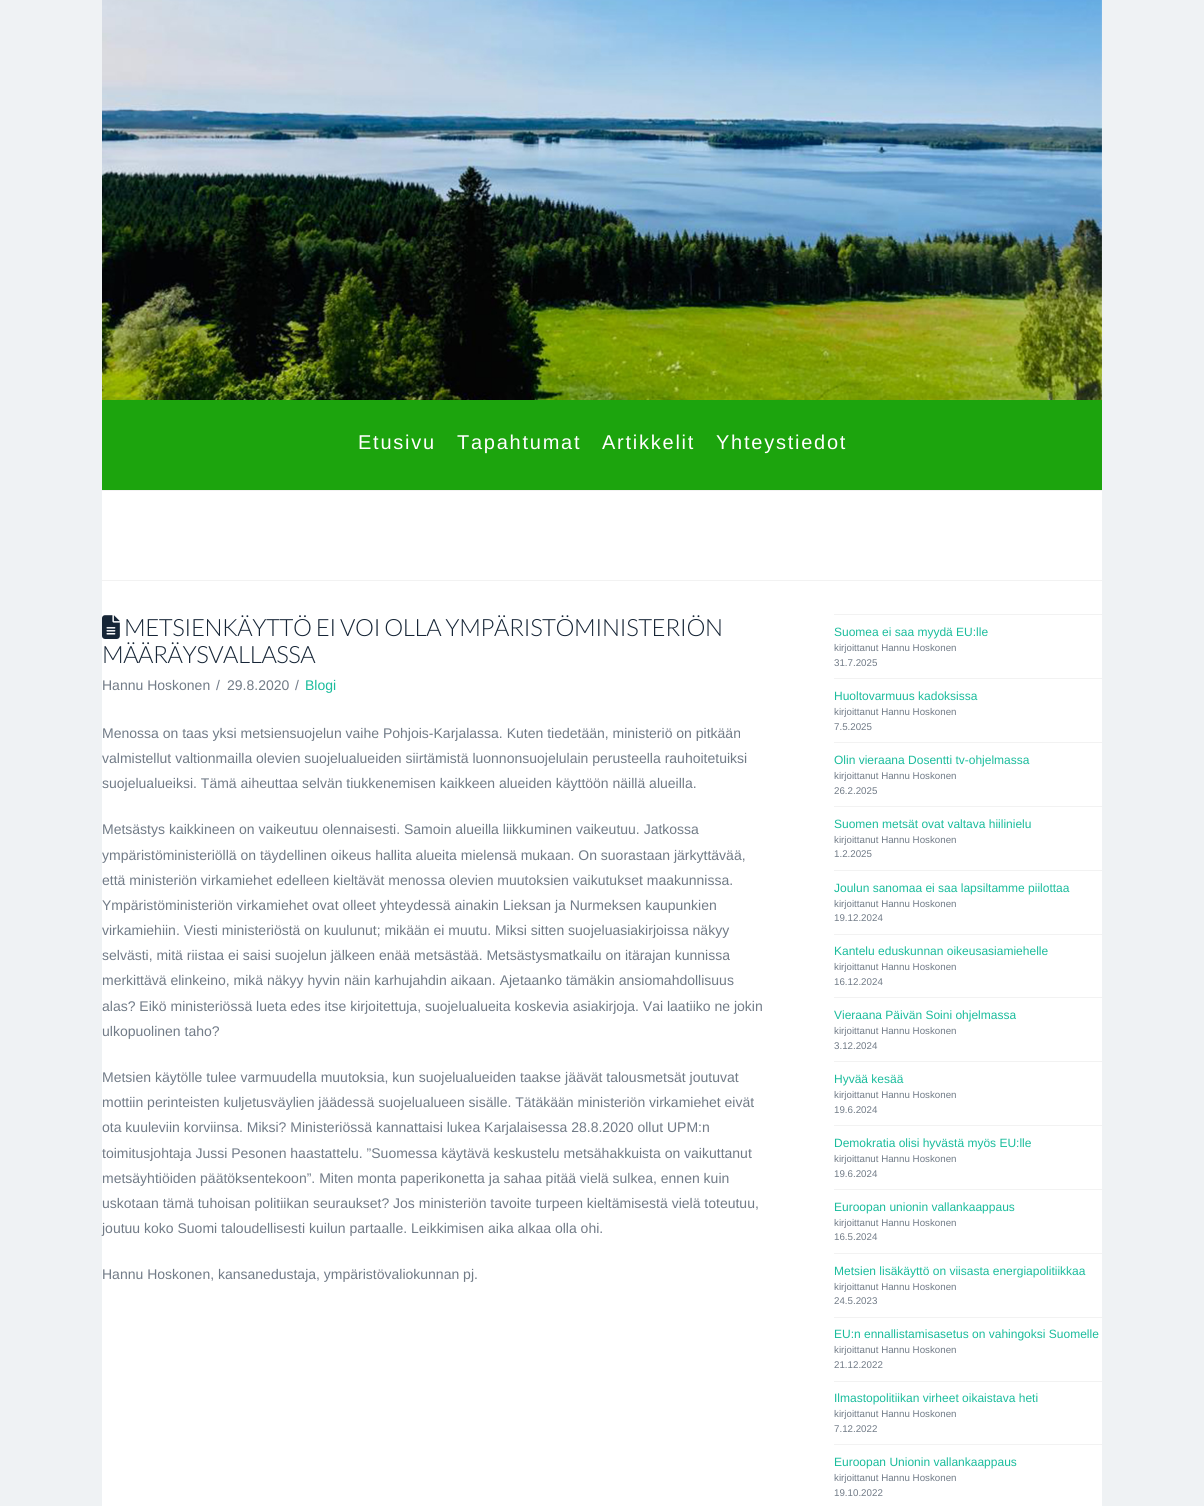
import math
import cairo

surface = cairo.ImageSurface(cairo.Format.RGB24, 1204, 1506)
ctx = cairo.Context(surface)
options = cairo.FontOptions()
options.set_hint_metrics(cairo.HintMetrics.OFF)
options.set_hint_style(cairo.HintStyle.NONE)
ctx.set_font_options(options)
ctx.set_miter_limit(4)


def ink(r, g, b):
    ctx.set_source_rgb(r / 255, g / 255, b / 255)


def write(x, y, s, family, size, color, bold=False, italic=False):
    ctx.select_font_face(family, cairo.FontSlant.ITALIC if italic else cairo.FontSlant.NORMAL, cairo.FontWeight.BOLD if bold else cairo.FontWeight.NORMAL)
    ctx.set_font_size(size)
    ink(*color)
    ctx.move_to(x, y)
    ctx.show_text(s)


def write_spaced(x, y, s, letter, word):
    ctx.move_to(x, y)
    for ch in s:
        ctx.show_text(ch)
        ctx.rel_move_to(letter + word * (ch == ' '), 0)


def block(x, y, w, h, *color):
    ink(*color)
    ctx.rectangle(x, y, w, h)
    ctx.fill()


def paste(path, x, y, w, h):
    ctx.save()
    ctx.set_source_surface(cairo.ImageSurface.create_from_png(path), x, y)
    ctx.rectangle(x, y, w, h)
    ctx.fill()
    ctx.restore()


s1 = dict(family="Liberation Sans", size=14, color=(113, 123, 135))
s2 = dict(family="Liberation Sans", size=14, color=(26, 188, 156))
s3 = dict(family="Liberation Sans", size=12, color=(26, 188, 156))
s4 = dict(family="Liberation Sans", size=9.75, color=(113, 123, 135))

ink(239, 242, 244)
ctx.paint()
block(102, 491, 1000, 1015, 255, 255, 255)
paste("pic1.png", 102, 0, 1000, 400)
block(102, 400, 1000, 90, 28, 164, 13)
ctx.select_font_face("Liberation Sans")
ctx.set_font_size(20)
ink(255, 255, 255)
write_spaced(358, 449, "Etusivu", 1.75, 0)
write_spaced(457, 449, "Tapahtumat", 1.75, 0)
write_spaced(602, 449, "Artikkelit", 1.75, 0)
write_spaced(716, 449, "Yhteystiedot", 1.75, 0)
block(102, 490, 1000, 1, 242, 242, 242)
block(102, 580, 1000, 1, 242, 242, 242)
paste("pic2.png", 102, 615, 18, 24)
ctx.select_font_face("Lato Light")
ctx.set_font_size(23.8)
ink(22, 37, 54)
write_spaced(124, 636, "METSIENKÄYTTÖ EI VOI OLLA YMPÄRISTÖMINISTERIÖN", -0.45, 0)
write_spaced(102, 663, "MÄÄRÄYSVALLASSA", -0.45, 0)
write(102, 690, "Hannu Hoskonen", **s1)
write(216, 690, "/", **s1)
write(227, 690, "29.8.2020", **s1)
write(295, 690, "/", **s1)
write(305, 690, "Blogi", **s2)
write(102, 738, "Menossa on taas yksi metsiensuojelun vaihe Pohjois-Karjalassa. Kuten tiedetään, ministeriö on pitkään", **s1)
write(102, 763, "valmistellut valtionmailla olevien suojelualueiden siirtämistä luonnonsuojelulain perusteella rauhoitetuiksi", **s1)
write(102, 788, "suojelualueiksi. Tämä aiheuttaa selvän tiukkenemisen kaikkeen alueiden käyttöön näillä alueilla.", **s1)
write(102, 834, "Metsästys kaikkineen on vaikeutuu olennaisesti. Samoin alueilla liikkuminen vaikeutuu. Jatkossa", **s1)
write(102, 860, "ympäristöministeriöllä on täydellinen oikeus hallita alueita mielensä mukaan. On suorastaan järkyttävää,", **s1)
write(102, 885, "että ministeriön virkamiehet edelleen kieltävät menossa olevien muutoksien vaikutukset maakunnissa.", **s1)
write(102, 910, "Ympäristöministeriön virkamiehet ovat olleet yhteydessä ainakin Lieksan ja Nurmeksen kaupunkien", **s1)
write(102, 935, "virkamiehiin. Viesti ministeriöstä on kuulunut; mikään ei muutu. Miksi sitten suojeluasiakirjoissa näkyy", **s1)
write(102, 960, "selvästi, mitä riistaa ei saisi suojelun jälkeen enää metsästää. Metsästysmatkailu on itärajan kunnissa", **s1)
write(102, 985, "merkittävä elinkeino, mikä näkyy hyvin näin karhujahdin aikaan. Ajetaanko tämäkin ansiomahdollisuus", **s1)
write(102, 1011, "alas? Eikö ministeriössä lueta edes itse kirjoitettuja, suojelualueita koskevia asiakirjoja. Vai laatiiko ne jokin", **s1)
write(102, 1036, "ulkopuolinen taho?", **s1)
write(102, 1082, "Metsien käytölle tulee varmuudella muutoksia, kun suojelualueiden taakse jäävät talousmetsät joutuvat", **s1)
write(102, 1107, "mottiin perinteisten kuljetusväylien jäädessä suojelualueen sisälle. Tätäkään ministeriön virkamiehet eivät", **s1)
write(102, 1132, "ota kuuleviin korviinsa. Miksi? Ministeriössä kannattaisi lukea Karjalaisessa 28.8.2020 ollut UPM:n", **s1)
write(102, 1158, "toimitusjohtaja Jussi Pesonen haastattelu. ”Suomessa käytävä keskustelu metsähakkuista on vaikuttanut", **s1)
write(102, 1183, "metsäyhtiöiden päätöksentekoon”. Miten monta paperikonetta ja sahaa pitää vielä sulkea, ennen kuin", **s1)
write(102, 1208, "uskotaan tämä tuhoisan politiikan seuraukset? Jos ministeriön tavoite turpeen kieltämisestä vielä toteutuu,", **s1)
write(102, 1233, "joutuu koko Suomi taloudellisesti kuilun partaalle. Leikkimisen aika alkaa olla ohi.", **s1)
write(102, 1279, "Hannu Hoskonen, kansanedustaja, ympäristövaliokunnan pj.", **s1)
block(834, 614, 268, 1, 242, 242, 242)
block(834, 678, 268, 1, 242, 242, 242)
write(834, 636, "Suomea ei saa myydä EU:lle", **s3)
write(834, 651, "kirjoittanut Hannu Hoskonen", **s4)
write(834, 666, "31.7.2025", **s4)
block(834, 742, 268, 1, 242, 242, 242)
write(834, 700, "Huoltovarmuus kadoksissa", **s3)
write(834, 715, "kirjoittanut Hannu Hoskonen", **s4)
write(834, 730, "7.5.2025", **s4)
block(834, 806, 268, 1, 242, 242, 242)
write(834, 764, "Olin vieraana Dosentti tv-ohjelmassa", **s3)
write(834, 779, "kirjoittanut Hannu Hoskonen", **s4)
write(834, 794, "26.2.2025", **s4)
block(834, 870, 268, 1, 242, 242, 242)
write(834, 828, "Suomen metsät ovat valtava hiilinielu", **s3)
write(834, 843, "kirjoittanut Hannu Hoskonen", **s4)
write(834, 857, "1.2.2025", **s4)
block(834, 934, 268, 1, 242, 242, 242)
write(834, 892, "Joulun sanomaa ei saa lapsiltamme piilottaa", **s3)
write(834, 907, "kirjoittanut Hannu Hoskonen", **s4)
write(834, 921, "19.12.2024", **s4)
block(834, 997, 268, 1, 242, 242, 242)
write(834, 955, "Kantelu eduskunnan oikeusasiamiehelle", **s3)
write(834, 970, "kirjoittanut Hannu Hoskonen", **s4)
write(834, 985, "16.12.2024", **s4)
block(834, 1061, 268, 1, 242, 242, 242)
write(834, 1019, "Vieraana Päivän Soini ohjelmassa", **s3)
write(834, 1034, "kirjoittanut Hannu Hoskonen", **s4)
write(834, 1049, "3.12.2024", **s4)
block(834, 1125, 268, 1, 242, 242, 242)
write(834, 1083, "Hyvää kesää", **s3)
write(834, 1098, "kirjoittanut Hannu Hoskonen", **s4)
write(834, 1113, "19.6.2024", **s4)
block(834, 1189, 268, 1, 242, 242, 242)
write(834, 1147, "Demokratia olisi hyvästä myös EU:lle", **s3)
write(834, 1162, "kirjoittanut Hannu Hoskonen", **s4)
write(834, 1177, "19.6.2024", **s4)
block(834, 1253, 268, 1, 242, 242, 242)
write(834, 1211, "Euroopan unionin vallankaappaus", **s3)
write(834, 1226, "kirjoittanut Hannu Hoskonen", **s4)
write(834, 1240, "16.5.2024", **s4)
block(834, 1317, 268, 1, 242, 242, 242)
write(834, 1275, "Metsien lisäkäyttö on viisasta energiapolitiikkaa", **s3)
write(834, 1290, "kirjoittanut Hannu Hoskonen", **s4)
write(834, 1304, "24.5.2023", **s4)
block(834, 1381, 268, 1, 242, 242, 242)
write(834, 1338, "EU:n ennallistamisasetus on vahingoksi Suomelle", **s3)
write(834, 1353, "kirjoittanut Hannu Hoskonen", **s4)
write(834, 1368, "21.12.2022", **s4)
block(834, 1444, 268, 1, 242, 242, 242)
write(834, 1402, "Ilmastopolitiikan virheet oikaistava heti", **s3)
write(834, 1417, "kirjoittanut Hannu Hoskonen", **s4)
write(834, 1432, "7.12.2022", **s4)
write(834, 1466, "Euroopan Unionin vallankaappaus", **s3)
write(834, 1481, "kirjoittanut Hannu Hoskonen", **s4)
write(834, 1496, "19.10.2022", **s4)
surface.write_to_png("screenshot.png")
